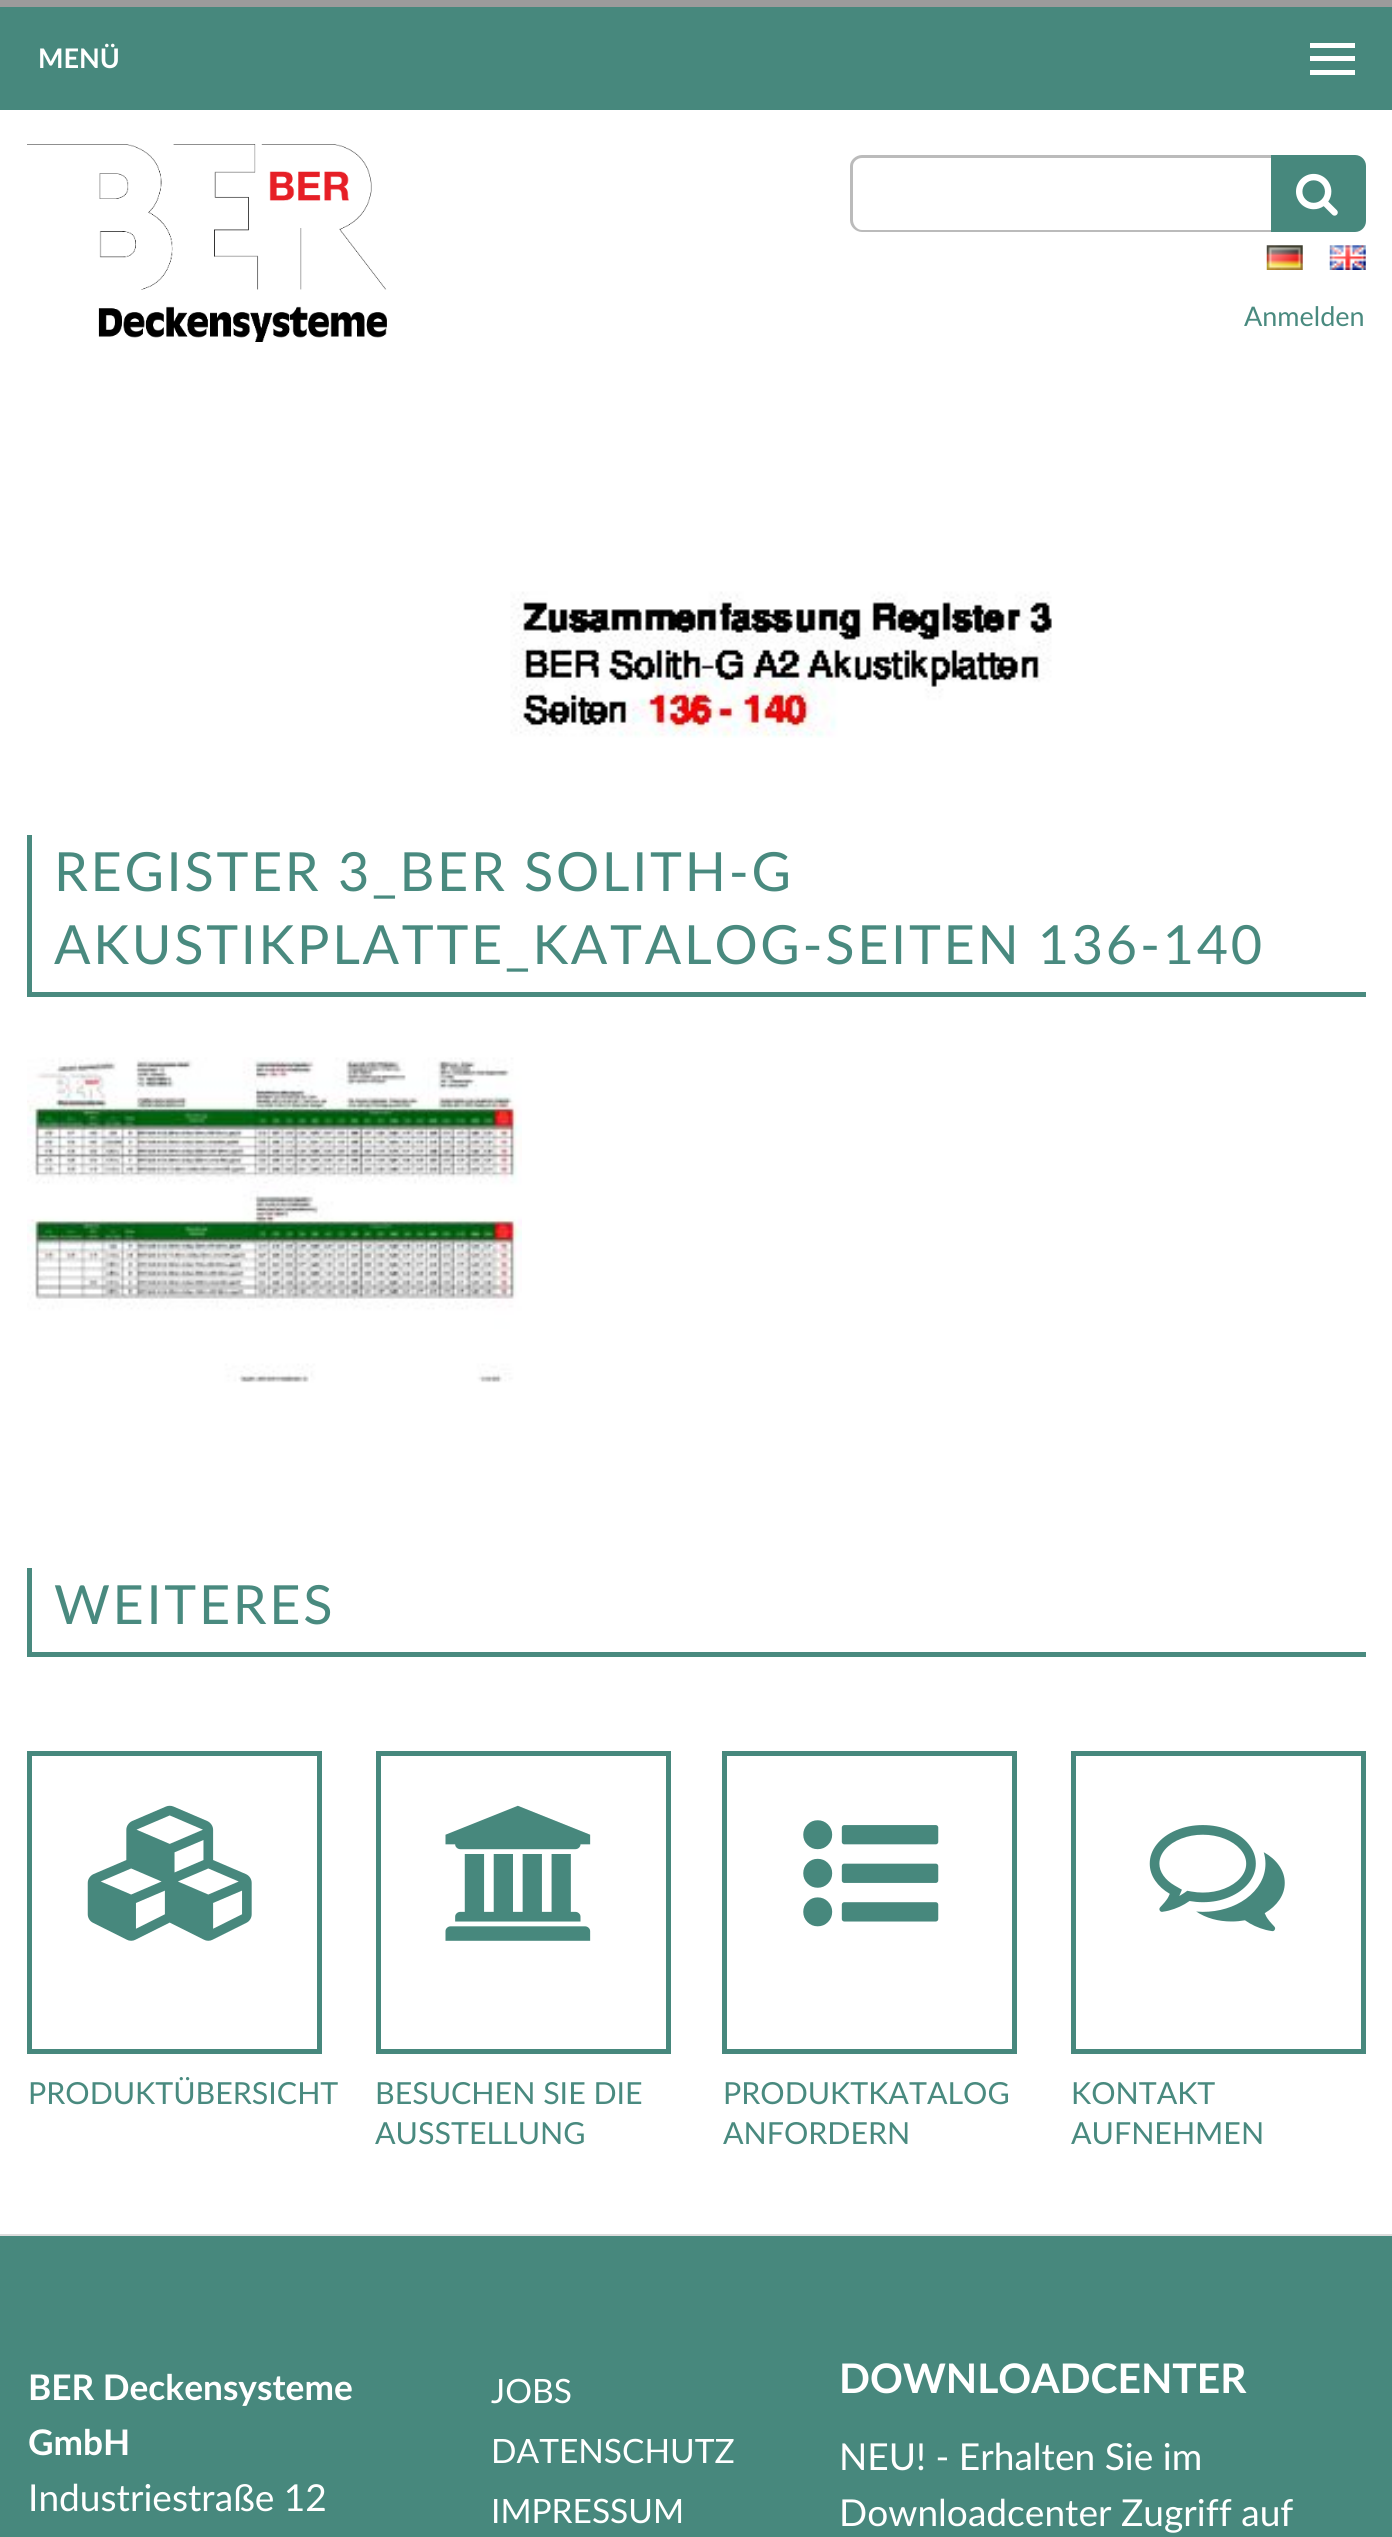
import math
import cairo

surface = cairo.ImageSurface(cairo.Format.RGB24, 1392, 2537)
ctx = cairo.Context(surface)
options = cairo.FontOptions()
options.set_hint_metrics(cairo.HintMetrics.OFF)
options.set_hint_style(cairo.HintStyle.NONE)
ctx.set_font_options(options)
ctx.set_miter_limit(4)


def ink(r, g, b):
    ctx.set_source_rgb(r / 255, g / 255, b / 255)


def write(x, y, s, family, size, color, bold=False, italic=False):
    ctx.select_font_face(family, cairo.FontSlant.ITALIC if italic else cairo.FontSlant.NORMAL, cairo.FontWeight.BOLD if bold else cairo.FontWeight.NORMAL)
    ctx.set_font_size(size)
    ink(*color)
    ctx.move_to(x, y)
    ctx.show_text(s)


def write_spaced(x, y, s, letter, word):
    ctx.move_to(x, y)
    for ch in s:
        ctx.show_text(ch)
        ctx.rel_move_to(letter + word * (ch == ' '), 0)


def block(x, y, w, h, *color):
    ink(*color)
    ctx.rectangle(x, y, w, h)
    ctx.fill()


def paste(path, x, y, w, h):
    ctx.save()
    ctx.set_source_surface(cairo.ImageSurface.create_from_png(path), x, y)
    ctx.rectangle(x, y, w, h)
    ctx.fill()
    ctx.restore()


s1 = dict(family="Lato", size=27, color=(255, 255, 255), bold=True)
s2 = dict(family="Lato", size=27, color=(73, 138, 127))
s3 = dict(family="Lato", size=30.4, color=(73, 138, 127))
s4 = dict(family="Lato", size=35.25, color=(255, 255, 255), bold=True)
s5 = dict(family="Lato", size=37.1, color=(255, 255, 255))
s6 = dict(family="Lato", size=33.5, color=(255, 255, 255))
s7 = dict(family="Lato", size=40.75, color=(255, 255, 255), bold=True)

ink(255, 255, 255)
ctx.paint()
block(0, 0, 1392, 7, 155, 155, 155)
block(0, 7, 1392, 103, 71, 136, 125)
write(38, 68, "MENÜ", **s1)
block(1310, 43, 45, 5, 255, 255, 255)
block(1310, 56, 45, 5, 255, 255, 255)
block(1310, 70, 45, 5, 255, 255, 255)
paste("pic1.png", 27, 144, 360, 198)
ink(187, 187, 187)
ctx.set_fill_rule(cairo.FillRule.EVEN_ODD)
ctx.new_path()
ctx.move_to(862, 155)
ctx.line_to(1271, 155)
ctx.line_to(1271, 232)
ctx.line_to(862, 232)
ctx.curve_to(856, 232, 850, 227, 850, 220)
ctx.line_to(850, 166)
ctx.curve_to(850, 160, 856, 155, 862, 155)
ctx.close_path()
ctx.move_to(862, 158)
ctx.line_to(1271, 158)
ctx.line_to(1271, 230)
ctx.line_to(862, 230)
ctx.curve_to(857, 230, 853, 225, 853, 220)
ctx.line_to(853, 166)
ctx.curve_to(853, 162, 857, 158, 862, 158)
ctx.close_path()
ctx.fill()
ink(71, 136, 125)
ctx.new_path()
ctx.move_to(1272, 156)
ctx.line_to(1355, 156)
ctx.curve_to(1360.5, 156, 1365, 160.5, 1365, 166)
ctx.line_to(1365, 221)
ctx.curve_to(1365, 226.5, 1360.5, 231, 1355, 231)
ctx.line_to(1272, 231)
ctx.close_path()
ctx.fill_preserve()
ctx.stroke()
paste("pic2.png", 1296, 173, 42, 43)
paste("pic3.png", 1266, 245, 37, 25)
paste("pic4.png", 1329, 245, 37, 25)
write(1244, 326, "Anmelden", **s2)
paste("pic5.png", 510, 591, 542, 147)
block(27, 992, 1339, 5, 73, 138, 127)
block(27, 835, 5, 162, 73, 138, 127)
ctx.set_font_size(54)
write_spaced(54, 891, "REGISTER 3_BER SOLITH-G", 2.7, 0)
write_spaced(54, 964, "AKUSTIKPLATTE_KATALOG-SEITEN 136-140", 2.7, 0)
paste("pic6.png", 27, 1057, 495, 326)
block(27, 1652, 1339, 5, 73, 138, 127)
block(27, 1568, 5, 88, 73, 138, 127)
write_spaced(54, 1624, "WEITERES", 2.7, 0)
ctx.rectangle(29.5, 1753.5, 290, 298)
ink(71, 136, 125)
ctx.set_line_width(5)
ctx.stroke()
paste("pic7.png", 87, 1805, 165, 136)
write(28, 2104, "PRODUKTÜBERSICHT", **s3)
ctx.rectangle(378.5, 1753.5, 290, 298)
ink(71, 136, 125)
ctx.stroke()
paste("pic8.png", 445, 1805, 146, 136)
write(375, 2104, "BESUCHEN SIE DIE", **s3)
write(375, 2144, "AUSSTELLUNG", **s3)
ctx.rectangle(724.5, 1753.5, 290, 298)
ink(71, 136, 125)
ctx.stroke()
paste("pic9.png", 803, 1820, 136, 107)
write(723, 2104, "PRODUKTKATALOG", **s3)
write(723, 2144, "ANFORDERN", **s3)
ctx.rectangle(1073.5, 1753.5, 290, 298)
ink(71, 136, 125)
ctx.stroke()
paste("pic10.png", 1149, 1825, 136, 107)
write(1071, 2104, "KONTAKT", **s3)
write(1071, 2144, "AUFNEHMEN", **s3)
block(0, 2236, 1392, 301, 71, 136, 125)
block(0, 2234, 1392, 2, 221, 221, 221)
write(28, 2400, "BER Deckensysteme", **s4)
write(28, 2455, "GmbH", **s4)
write(28, 2511, "Industriestraße 12", **s5)
write(491, 2403, "JOBS", **s6)
write(491, 2463, "DATENSCHUTZ", **s6)
write(491, 2523, "IMPRESSUM", **s6)
write(839, 2393, "DOWNLOADCENTER", **s7)
write(839, 2470, "NEU! - Erhalten Sie im", **s5)
write(839, 2526, "Downloadcenter Zugriff auf", **s5)
surface.write_to_png("screenshot.png")
